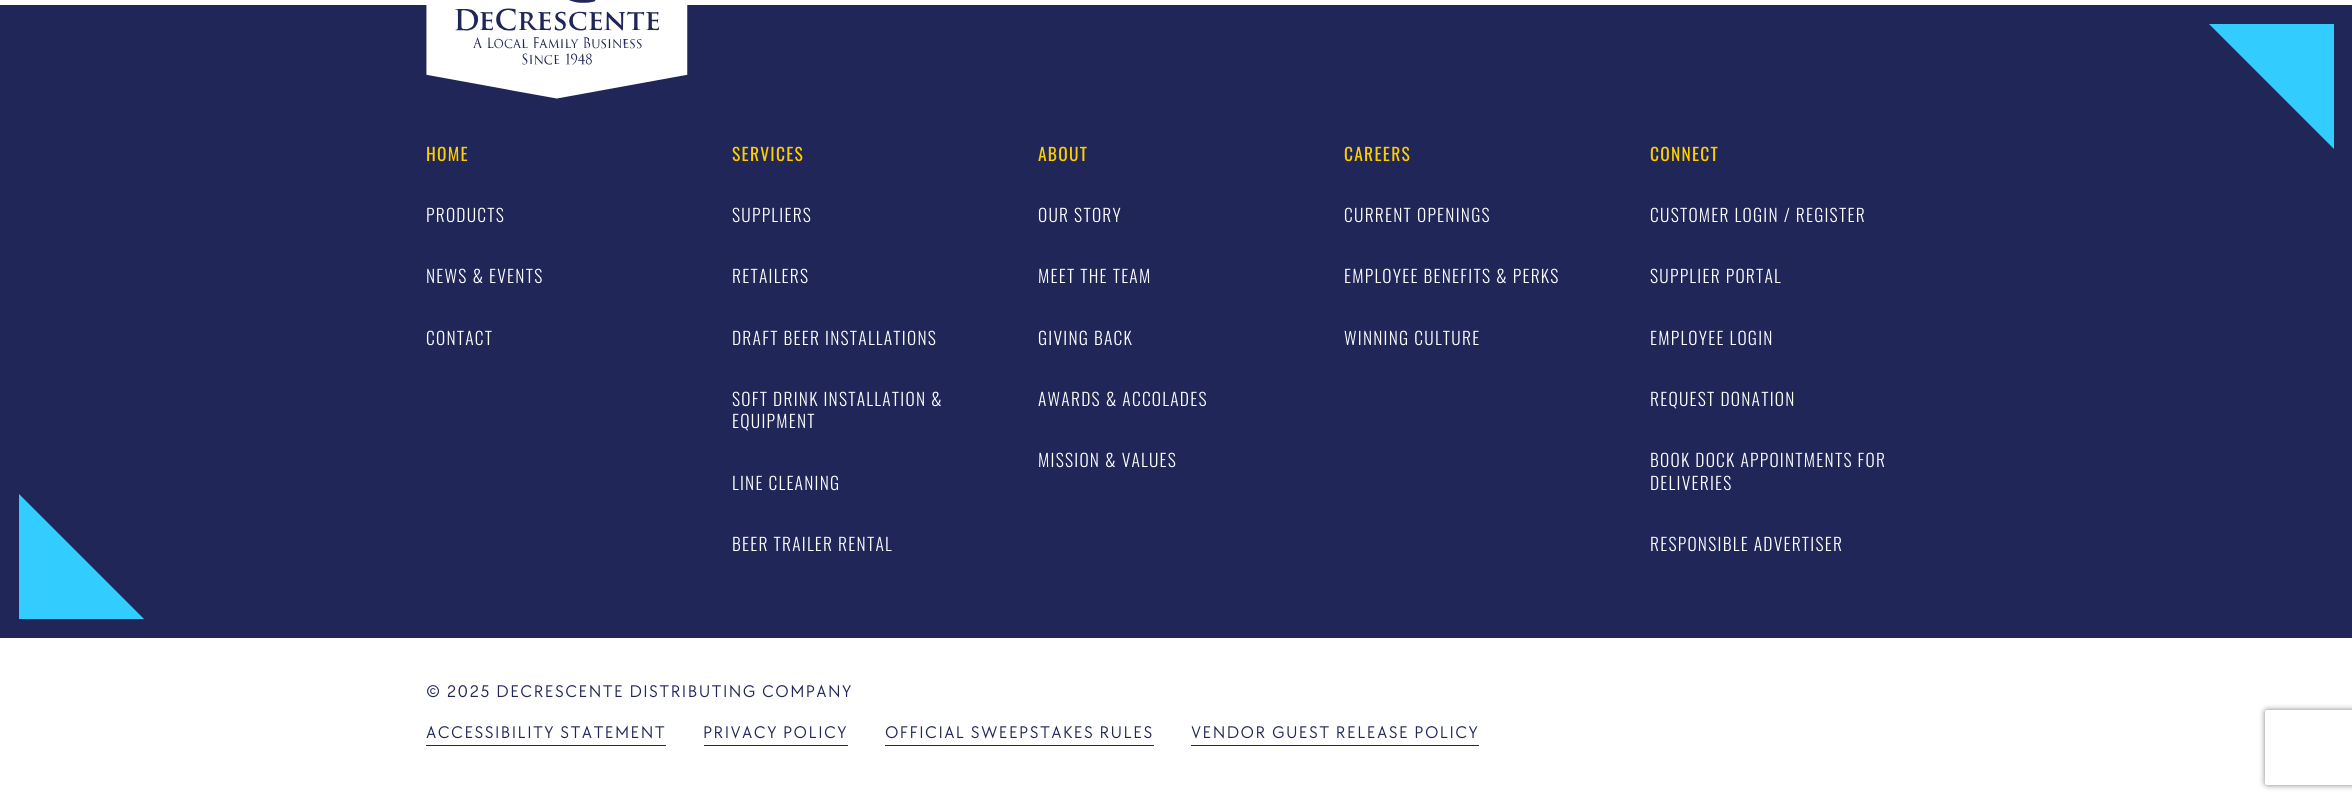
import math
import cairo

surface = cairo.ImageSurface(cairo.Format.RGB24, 2352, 802)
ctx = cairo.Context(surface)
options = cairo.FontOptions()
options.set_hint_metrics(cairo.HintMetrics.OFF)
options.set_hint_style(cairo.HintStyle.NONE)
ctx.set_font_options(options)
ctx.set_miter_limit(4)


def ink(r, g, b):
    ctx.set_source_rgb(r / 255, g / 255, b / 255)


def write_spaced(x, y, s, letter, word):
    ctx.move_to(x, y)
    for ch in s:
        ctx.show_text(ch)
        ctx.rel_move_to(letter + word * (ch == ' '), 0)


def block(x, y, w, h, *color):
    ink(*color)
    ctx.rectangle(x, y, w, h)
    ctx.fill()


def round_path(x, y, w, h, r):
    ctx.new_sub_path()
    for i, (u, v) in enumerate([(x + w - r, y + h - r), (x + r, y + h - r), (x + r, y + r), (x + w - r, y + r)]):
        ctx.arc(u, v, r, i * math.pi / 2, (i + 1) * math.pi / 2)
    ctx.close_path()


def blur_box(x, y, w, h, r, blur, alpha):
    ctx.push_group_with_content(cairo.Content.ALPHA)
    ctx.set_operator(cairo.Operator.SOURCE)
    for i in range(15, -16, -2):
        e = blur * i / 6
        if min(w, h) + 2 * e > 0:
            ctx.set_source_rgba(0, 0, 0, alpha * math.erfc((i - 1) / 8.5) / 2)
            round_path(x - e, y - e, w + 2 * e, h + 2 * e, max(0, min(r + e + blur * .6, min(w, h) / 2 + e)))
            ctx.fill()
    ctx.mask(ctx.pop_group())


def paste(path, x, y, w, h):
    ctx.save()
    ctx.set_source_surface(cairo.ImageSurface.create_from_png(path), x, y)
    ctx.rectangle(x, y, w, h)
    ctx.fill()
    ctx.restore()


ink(255, 255, 255)
ctx.paint()
block(0, 5, 2352, 633, 32, 39, 88)
paste("pic1.png", 426, 0, 262, 99)
ink(51, 204, 255)
ctx.new_path()
ctx.move_to(2334, 149)
ctx.line_to(2334, 24)
ctx.line_to(2209, 24)
ctx.close_path()
ctx.fill()
ctx.new_path()
ctx.move_to(144, 619)
ctx.line_to(19, 619)
ctx.line_to(19, 494)
ctx.close_path()
ctx.fill()
ctx.select_font_face("Oswald")
ctx.set_font_size(17.5)
ink(255, 204, 0)
write_spaced(426, 161, "HOME", 1.25, 0)
ctx.select_font_face("Oswald Light")
ink(255, 255, 255)
write_spaced(426, 222, "PRODUCTS", 1.25, 0)
write_spaced(426, 283, "NEWS & EVENTS", 1.25, 0)
write_spaced(426, 345, "CONTACT", 1.25, 0)
ctx.select_font_face("Oswald")
ink(255, 204, 0)
write_spaced(732, 161, "SERVICES", 1.25, 0)
ctx.select_font_face("Oswald Light")
ink(255, 255, 255)
write_spaced(732, 222, "SUPPLIERS", 1.25, 0)
write_spaced(732, 283, "RETAILERS", 1.25, 0)
write_spaced(732, 345, "DRAFT BEER INSTALLATIONS", 1.25, 0)
write_spaced(732, 406, "SOFT DRINK INSTALLATION &", 1.25, 0)
write_spaced(732, 428, "EQUIPMENT", 1.25, 0)
write_spaced(732, 490, "LINE CLEANING", 1.25, 0)
write_spaced(732, 551, "BEER TRAILER RENTAL", 1.25, 0)
ctx.select_font_face("Oswald")
ink(255, 204, 0)
write_spaced(1038, 161, "ABOUT", 1.25, 0)
ctx.select_font_face("Oswald Light")
ink(255, 255, 255)
write_spaced(1038, 222, "OUR STORY", 1.25, 0)
write_spaced(1038, 283, "MEET THE TEAM", 1.25, 0)
write_spaced(1038, 345, "GIVING BACK", 1.25, 0)
write_spaced(1038, 406, "AWARDS & ACCOLADES", 1.25, 0)
write_spaced(1038, 467, "MISSION & VALUES", 1.25, 0)
ctx.select_font_face("Oswald")
ink(255, 204, 0)
write_spaced(1344, 161, "CAREERS", 1.25, 0)
ctx.select_font_face("Oswald Light")
ink(255, 255, 255)
write_spaced(1344, 222, "CURRENT OPENINGS", 1.25, 0)
write_spaced(1344, 283, "EMPLOYEE BENEFITS & PERKS", 1.25, 0)
write_spaced(1344, 345, "WINNING CULTURE", 1.25, 0)
ctx.select_font_face("Oswald")
ink(255, 204, 0)
write_spaced(1650, 161, "CONNECT", 1.25, 0)
ctx.select_font_face("Oswald Light")
ink(255, 255, 255)
write_spaced(1650, 222, "CUSTOMER LOGIN / REGISTER", 1.25, 0)
write_spaced(1650, 283, "SUPPLIER PORTAL", 1.25, 0)
write_spaced(1650, 345, "EMPLOYEE LOGIN", 1.25, 0)
write_spaced(1650, 406, "REQUEST DONATION", 1.25, 0)
write_spaced(1650, 467, "BOOK DOCK APPOINTMENTS FOR", 1.25, 0)
write_spaced(1650, 490, "DELIVERIES", 1.25, 0)
write_spaced(1650, 551, "RESPONSIBLE ADVERTISER", 1.25, 0)
ctx.select_font_face("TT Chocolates")
ink(32, 39, 88)
write_spaced(426, 697, "© 2025 DECRESCENTE DISTRIBUTING COMPANY", 1.4, 0)
write_spaced(426, 738, "ACCESSIBILITY STATEMENT", 1.4, 0)
block(426, 745, 240, 1, 32, 39, 88)
write_spaced(703, 738, "PRIVACY POLICY", 1.4, 0)
block(704, 745, 144, 1, 32, 39, 88)
write_spaced(885, 738, "OFFICIAL SWEEPSTAKES RULES", 1.4, 0)
block(885, 745, 269, 1, 32, 39, 88)
write_spaced(1191, 738, "VENDOR GUEST RELEASE POLICY", 1.4, 0)
block(1191, 745, 288, 1, 32, 39, 88)
ctx.save()
ctx.set_fill_rule(cairo.FillRule.EVEN_ODD)
ctx.new_path()
ctx.move_to(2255, 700)
ctx.line_to(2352, 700)
ctx.line_to(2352, 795)
ctx.line_to(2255, 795)
ctx.close_path()
ctx.move_to(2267.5, 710)
ctx.line_to(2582.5, 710)
ctx.curve_to(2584, 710, 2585, 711, 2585, 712.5)
ctx.line_to(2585, 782.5)
ctx.curve_to(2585, 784, 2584, 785, 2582.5, 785)
ctx.line_to(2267.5, 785)
ctx.curve_to(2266, 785, 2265, 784, 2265, 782.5)
ctx.line_to(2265, 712.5)
ctx.curve_to(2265, 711, 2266, 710, 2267.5, 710)
ctx.close_path()
ctx.clip()
ink(128, 128, 128)
blur_box(2265, 710, 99, 75, 2.5, 3, 1)
ctx.restore()
surface.write_to_png("screenshot.png")
